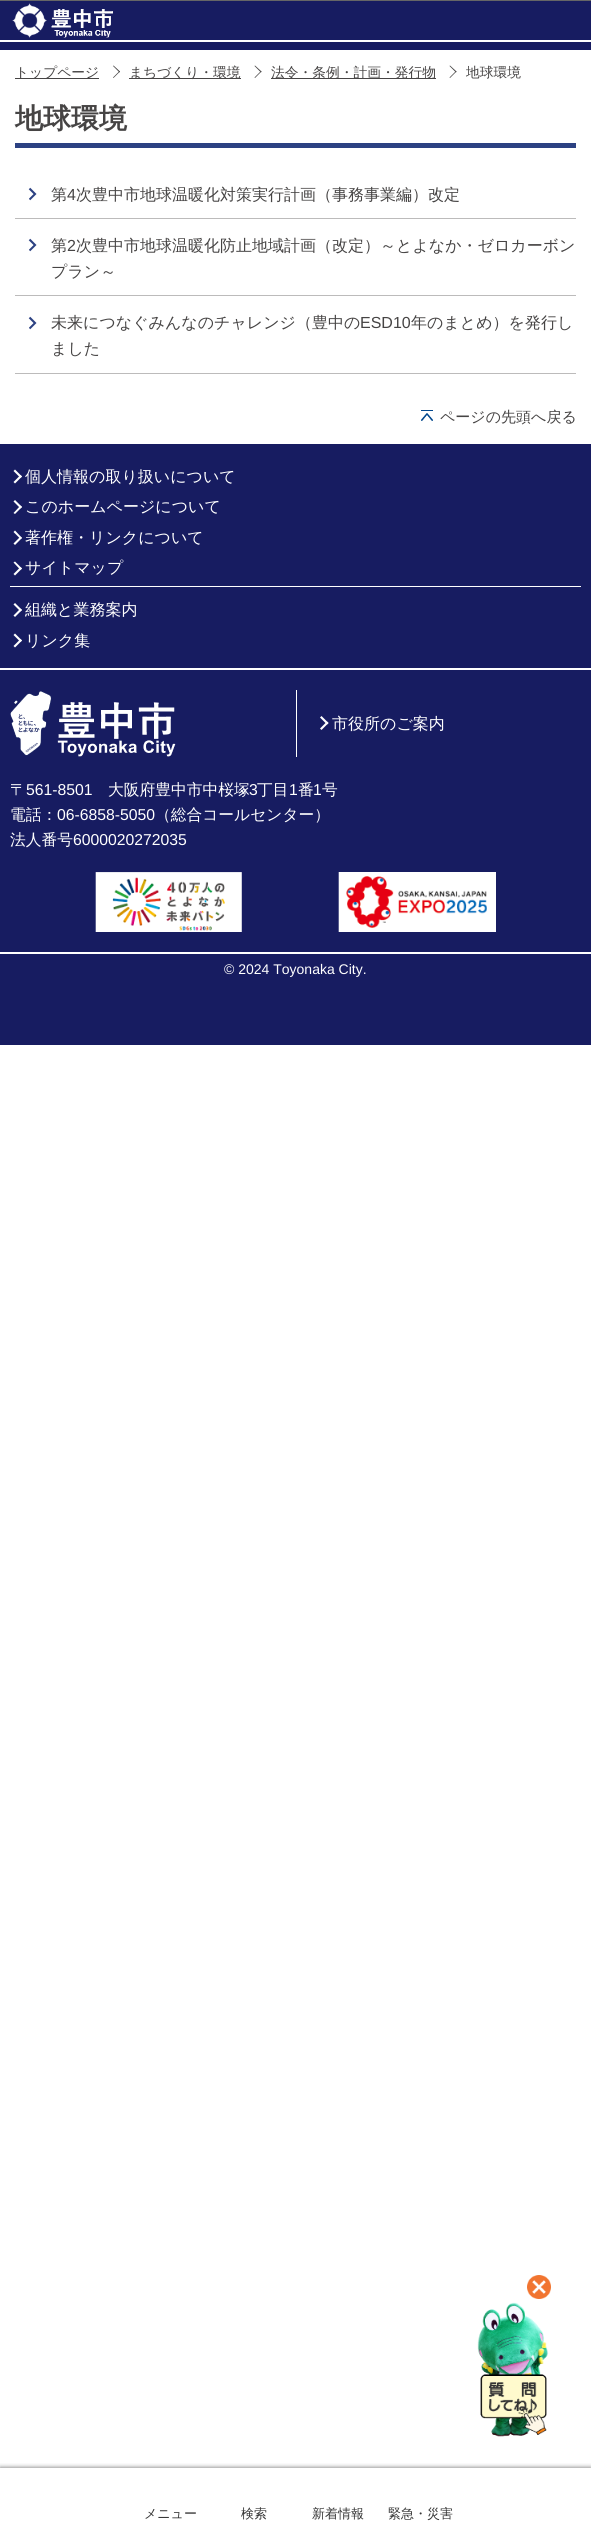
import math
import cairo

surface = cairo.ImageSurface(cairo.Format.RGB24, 591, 2528)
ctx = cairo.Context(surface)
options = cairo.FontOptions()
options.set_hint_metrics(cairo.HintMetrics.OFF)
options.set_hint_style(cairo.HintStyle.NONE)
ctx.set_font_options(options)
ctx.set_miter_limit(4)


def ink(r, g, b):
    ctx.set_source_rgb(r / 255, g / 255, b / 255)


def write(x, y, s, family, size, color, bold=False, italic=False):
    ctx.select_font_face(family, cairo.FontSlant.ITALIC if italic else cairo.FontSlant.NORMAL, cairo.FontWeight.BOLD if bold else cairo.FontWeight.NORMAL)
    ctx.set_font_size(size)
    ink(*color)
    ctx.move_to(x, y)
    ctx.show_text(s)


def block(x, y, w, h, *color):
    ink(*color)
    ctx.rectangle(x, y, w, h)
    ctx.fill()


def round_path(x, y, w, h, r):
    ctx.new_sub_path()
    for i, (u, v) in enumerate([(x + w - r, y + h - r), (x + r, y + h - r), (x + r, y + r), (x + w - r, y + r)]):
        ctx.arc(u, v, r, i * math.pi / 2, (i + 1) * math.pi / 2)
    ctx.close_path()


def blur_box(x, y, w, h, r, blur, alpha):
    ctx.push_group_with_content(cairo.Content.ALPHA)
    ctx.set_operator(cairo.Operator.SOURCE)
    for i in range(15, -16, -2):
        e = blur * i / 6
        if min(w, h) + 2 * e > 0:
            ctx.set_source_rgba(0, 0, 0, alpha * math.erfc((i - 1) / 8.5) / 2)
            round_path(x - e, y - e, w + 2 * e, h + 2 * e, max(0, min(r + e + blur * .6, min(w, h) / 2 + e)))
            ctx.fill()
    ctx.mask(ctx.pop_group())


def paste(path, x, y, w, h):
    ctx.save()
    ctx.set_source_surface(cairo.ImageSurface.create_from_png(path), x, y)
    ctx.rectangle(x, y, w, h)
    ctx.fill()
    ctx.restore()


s1 = dict(family="WenQuanYi Zen Hei Medium", size=13.75, color=(70, 68, 68))
s2 = dict(family="WenQuanYi Zen Hei", size=28, color=(70, 68, 68), bold=True)
s3 = dict(family="WenQuanYi Zen Hei Medium", size=16, color=(70, 68, 68))
s4 = dict(family="Liberation Sans", size=16, color=(70, 68, 68))
s5 = dict(family="WenQuanYi Zen Hei Medium", size=15, color=(70, 68, 68))
s6 = dict(family="WenQuanYi Zen Hei Medium", size=16, color=(255, 255, 255))
s7 = dict(family="WenQuanYi Zen Hei Medium", size=15.75, color=(255, 255, 255))
s8 = dict(family="Liberation Sans", size=15.75, color=(255, 255, 255))
s9 = dict(family="Liberation Sans", size=14, color=(255, 255, 255))
s10 = dict(family="WenQuanYi Zen Hei Medium", size=13, color=(54, 54, 54))

ink(255, 255, 255)
ctx.paint()
block(0, 0, 591, 1, 102, 102, 102)
block(0, 1, 591, 39, 23, 28, 97)
paste("pic1.png", 12, 3, 101, 35)
block(0, 42, 591, 8, 23, 28, 97)
block(15, 78, 84, 1, 70, 68, 68)
write(15, 77, "トップページ", **s1)
ctx.new_path()
ctx.move_to(113.5, 65.5)
ctx.line_to(120, 71.5)
ctx.line_to(119.5, 72.5)
ctx.line_to(113, 66)
ctx.close_path()
ctx.fill()
ctx.new_path()
ctx.move_to(119.5, 71)
ctx.line_to(120, 71.5)
ctx.line_to(113.5, 78)
ctx.line_to(113, 77.5)
ctx.close_path()
ctx.fill()
block(129, 78, 112, 1, 70, 68, 68)
write(129, 77, "まちづくり・環境", **s1)
ctx.new_path()
ctx.move_to(255, 65.5)
ctx.line_to(261.5, 71.5)
ctx.line_to(261, 72.5)
ctx.line_to(254.5, 66)
ctx.close_path()
ctx.fill()
ctx.new_path()
ctx.move_to(261, 71)
ctx.line_to(261.5, 71.5)
ctx.line_to(255, 78)
ctx.line_to(254.5, 77.5)
ctx.close_path()
ctx.fill()
block(271, 78, 165, 1, 70, 68, 68)
write(271, 77, "法令・条例・計画・発行物", **s1)
ctx.new_path()
ctx.move_to(450, 65.5)
ctx.line_to(456.5, 71.5)
ctx.line_to(456, 72.5)
ctx.line_to(449.5, 66)
ctx.close_path()
ctx.fill()
ctx.new_path()
ctx.move_to(456, 71)
ctx.line_to(456.5, 71.5)
ctx.line_to(450, 78)
ctx.line_to(449.5, 77.5)
ctx.close_path()
ctx.fill()
write(466, 77, "地球環境", **s1)
block(15, 143, 561, 5, 44, 65, 130)
write(15, 128, "地球環境", **s2)
paste("pic2.png", 28, 187, 9, 14)
block(15, 218, 561, 1, 188, 187, 187)
write(51, 200, "第", **s3)
write(67, 200, "4", **s4)
write(76, 200, "次豊中市地球温暖化対策実行計画（事務事業編）改定", **s3)
paste("pic2.png", 28, 238, 9, 14)
block(15, 295, 561, 1, 188, 187, 187)
write(51, 251, "第", **s3)
write(67, 251, "2", **s4)
write(76, 251, "次豊中市地球温暖化防止地域計画（改定）～とよなか・ゼロカーボン", **s3)
write(51, 277, "プラン～", **s3)
paste("pic2.png", 28, 316, 9, 14)
block(15, 373, 561, 1, 188, 187, 187)
write(51, 328, "未来につなぐみんなのチャレンジ（豊中の", **s3)
write(360, 328, "ESD10", **s4)
write(411, 328, "年のまとめ）を発行し", **s3)
write(51, 354, "ました", **s3)
paste("pic3.png", 421, 410, 12, 11)
write(440, 422, "ページの先頭へ戻る", **s5)
block(0, 444, 591, 601, 23, 28, 97)
block(0, 668, 591, 2, 255, 255, 255)
ctx.new_path()
ctx.move_to(15, 469.5)
ctx.line_to(22, 476.5)
ctx.line_to(20.5, 478)
ctx.line_to(13.5, 471)
ctx.close_path()
ctx.fill()
ctx.new_path()
ctx.move_to(20.5, 475)
ctx.line_to(22, 476.5)
ctx.line_to(15, 483.5)
ctx.line_to(13.5, 482)
ctx.close_path()
ctx.fill()
write(25, 482, "個人情報の取り扱いについて", **s6)
ctx.new_path()
ctx.move_to(15, 500)
ctx.line_to(22, 507)
ctx.line_to(20.5, 508.5)
ctx.line_to(13.5, 501.5)
ctx.close_path()
ctx.fill()
ctx.new_path()
ctx.move_to(20.5, 505.5)
ctx.line_to(22, 507)
ctx.line_to(15, 514)
ctx.line_to(13.5, 513)
ctx.close_path()
ctx.fill()
write(25, 512, "このホームページについて", **s6)
ctx.new_path()
ctx.move_to(15, 530.5)
ctx.line_to(22, 538)
ctx.line_to(20.5, 539)
ctx.line_to(13.5, 532)
ctx.close_path()
ctx.fill()
ctx.new_path()
ctx.move_to(20.5, 536.5)
ctx.line_to(22, 538)
ctx.line_to(15, 545)
ctx.line_to(13.5, 543.5)
ctx.close_path()
ctx.fill()
write(25, 543, "著作権・リンクについて", **s6)
ctx.new_path()
ctx.move_to(15, 561.5)
ctx.line_to(22, 568.5)
ctx.line_to(20.5, 570)
ctx.line_to(13.5, 562.5)
ctx.close_path()
ctx.fill()
ctx.new_path()
ctx.move_to(20.5, 567)
ctx.line_to(22, 568.5)
ctx.line_to(15, 575.5)
ctx.line_to(13.5, 574)
ctx.close_path()
ctx.fill()
write(25, 573, "サイトマップ", **s6)
block(10, 586, 571, 1, 255, 255, 255)
ctx.new_path()
ctx.move_to(15, 603)
ctx.line_to(22, 610)
ctx.line_to(20.5, 611.5)
ctx.line_to(13.5, 604.5)
ctx.close_path()
ctx.fill()
ctx.new_path()
ctx.move_to(20.5, 608.5)
ctx.line_to(22, 610)
ctx.line_to(15, 617)
ctx.line_to(13.5, 615.5)
ctx.close_path()
ctx.fill()
write(25, 615, "組織と業務案内", **s6)
ctx.new_path()
ctx.move_to(15, 633.5)
ctx.line_to(22, 640.5)
ctx.line_to(20.5, 642)
ctx.line_to(13.5, 635)
ctx.close_path()
ctx.fill()
ctx.new_path()
ctx.move_to(20.5, 639)
ctx.line_to(22, 640.5)
ctx.line_to(15, 647.5)
ctx.line_to(13.5, 646)
ctx.close_path()
ctx.fill()
write(25, 646, "リンク集", **s6)
block(296, 690, 1, 67, 255, 255, 255)
ctx.new_path()
ctx.move_to(321.5, 716)
ctx.line_to(328.5, 723)
ctx.line_to(327, 724.5)
ctx.line_to(320, 717.5)
ctx.close_path()
ctx.fill()
ctx.new_path()
ctx.move_to(327, 721.5)
ctx.line_to(328.5, 723)
ctx.line_to(321.5, 730)
ctx.line_to(320, 728.5)
ctx.close_path()
ctx.fill()
write(332, 729, "市役所のご案内", **s6)
paste("pic4.png", 10, 691, 166, 66)
write(10, 795, "〒", **s7)
write(26, 795, "561-8501", **s8)
write(108, 795, "大阪府豊中市中桜塚", **s7)
write(249, 795, "3", **s8)
write(257, 795, "丁目", **s7)
write(289, 795, "1", **s8)
write(298, 795, "番", **s7)
write(313, 795, "1", **s8)
write(322, 795, "号", **s7)
write(10, 820, "電話：", **s7)
write(57, 820, "06-6858-5050", **s8)
write(155, 820, "（総合コールセンター）", **s7)
write(10, 845, "法人番号", **s7)
write(73, 845, "6000020272035", **s8)
paste("pic5.png", 95, 872, 147, 60)
paste("pic6.png", 338, 872, 158, 60)
block(0, 952, 591, 2, 255, 255, 255)
write(224, 974, "© 2024 Toyonaka City.", **s9)
ctx.save()
ctx.rectangle(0, 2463, 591, 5)
ctx.clip()
ink(102, 102, 102)
blur_box(0, 2468, 591, 60, 0, 2.5, 1)
ctx.restore()
write(144, 2518, "メニュー", **s10)
write(241, 2518, "検索", **s10)
write(312, 2518, "新着情報", **s10)
write(388, 2518, "緊急・災害", **s10)
paste("pic7.png", 527, 2275, 24, 24)
paste("pic8.png", 477, 2302, 72, 135)
surface.write_to_png("screenshot.png")
